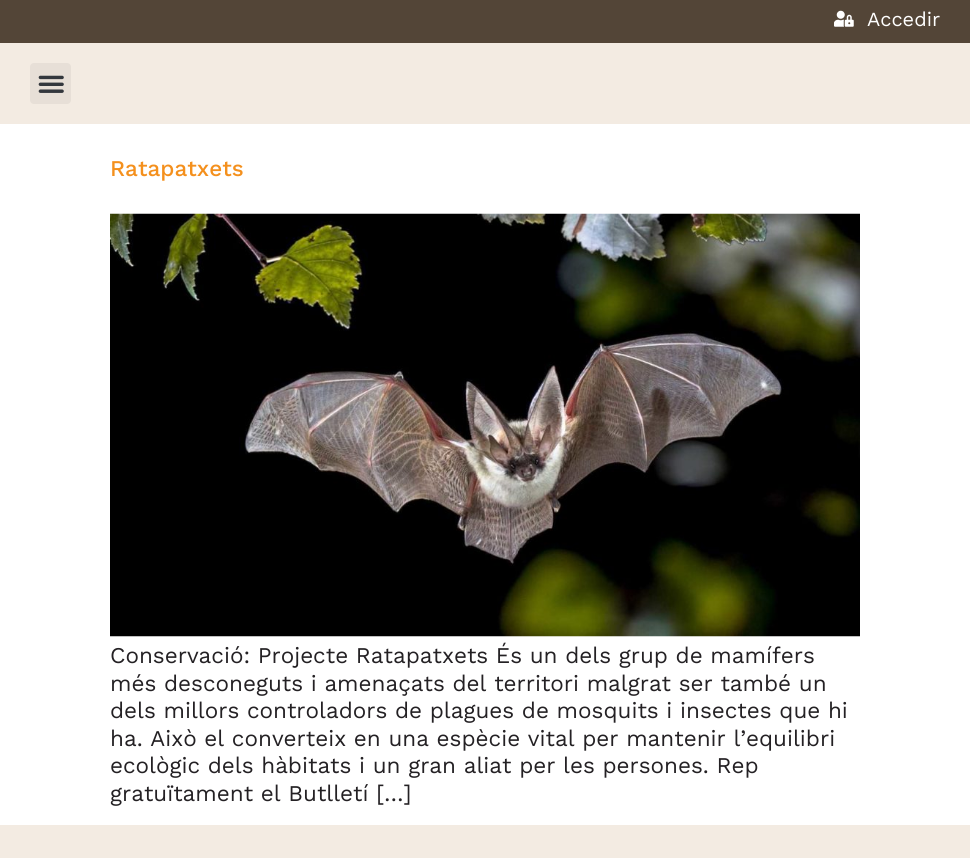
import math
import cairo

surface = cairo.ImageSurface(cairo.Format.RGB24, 970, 858)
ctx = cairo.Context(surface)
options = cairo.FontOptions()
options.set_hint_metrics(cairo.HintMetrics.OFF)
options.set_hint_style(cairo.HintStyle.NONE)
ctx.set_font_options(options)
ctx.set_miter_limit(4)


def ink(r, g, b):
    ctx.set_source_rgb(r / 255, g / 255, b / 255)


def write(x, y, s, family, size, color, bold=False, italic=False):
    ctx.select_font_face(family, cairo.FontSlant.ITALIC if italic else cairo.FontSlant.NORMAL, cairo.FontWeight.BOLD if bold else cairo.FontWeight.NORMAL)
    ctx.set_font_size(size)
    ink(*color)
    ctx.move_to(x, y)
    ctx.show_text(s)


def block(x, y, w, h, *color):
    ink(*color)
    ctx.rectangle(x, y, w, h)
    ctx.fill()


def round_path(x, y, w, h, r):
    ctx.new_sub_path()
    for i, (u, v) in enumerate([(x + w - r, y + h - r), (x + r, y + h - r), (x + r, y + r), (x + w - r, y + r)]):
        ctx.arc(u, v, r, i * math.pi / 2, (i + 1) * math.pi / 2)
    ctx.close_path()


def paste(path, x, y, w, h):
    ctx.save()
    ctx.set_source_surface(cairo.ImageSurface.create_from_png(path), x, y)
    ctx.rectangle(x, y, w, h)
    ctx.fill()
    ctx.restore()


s1 = dict(family="Work Sans", size=20, color=(255, 255, 255))
s2 = dict(family="Work Sans Medium", size=22.5, color=(244, 144, 29))
s3 = dict(family="Work Sans", size=22.5, color=(36, 33, 36))

ink(255, 255, 255)
ctx.paint()
block(0, 0, 970, 43, 83, 69, 55)
paste("pic1.png", 834, 10, 20, 17)
write(867, 26, "Accedir", **s1)
block(0, 43, 970, 81, 243, 235, 226)
ink(231, 223, 215)
round_path(30, 63, 41, 41, 4)
ctx.fill()
paste("pic2.png", 38, 75, 26, 18)
write(110, 176, "Ratapatxets", **s2)
paste("pic3.png", 110, 213, 750, 424)
write(110, 663, "Conservació: Projecte Ratapatxets És un dels grup de mamífers", **s3)
write(110, 691, "més desconeguts i amenaçats del territori malgrat ser també un", **s3)
write(110, 718, "dels millors controladors de plagues de mosquits i insectes que hi", **s3)
write(110, 746, "ha. Això el converteix en una espècie vital per mantenir l’equilibri", **s3)
write(110, 773, "ecològic dels hàbitats i un gran aliat per les persones. Rep", **s3)
write(110, 801, "gratuïtament el Butlletí […]", **s3)
block(0, 825, 970, 33, 243, 235, 226)
surface.write_to_png("screenshot.png")
